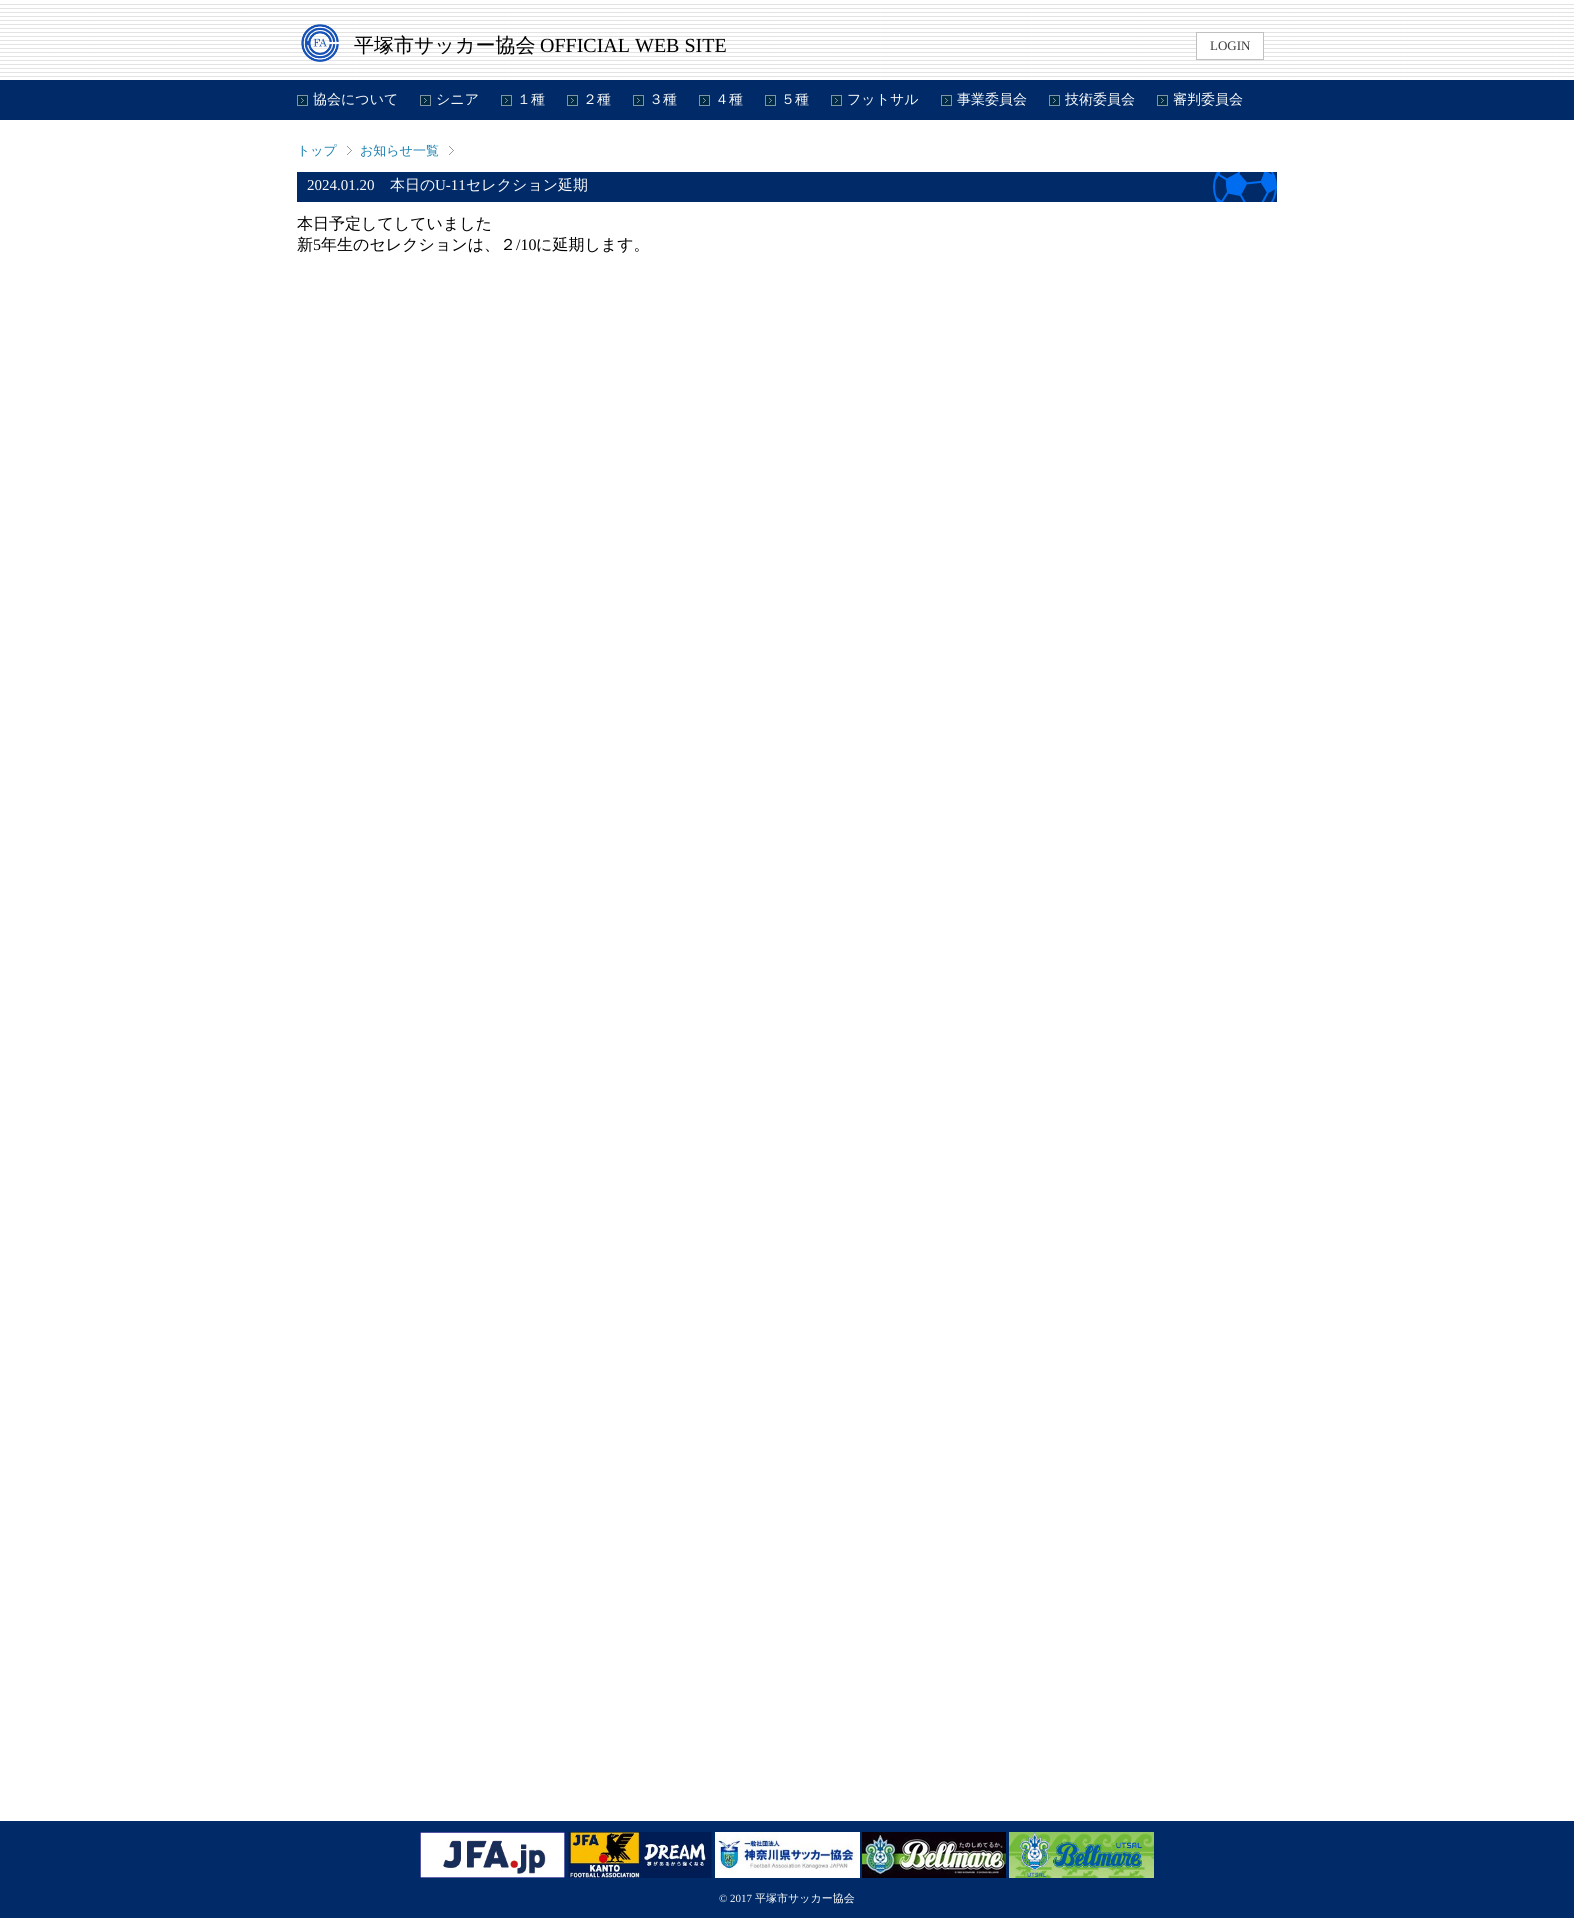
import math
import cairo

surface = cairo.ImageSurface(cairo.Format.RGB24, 1574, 1918)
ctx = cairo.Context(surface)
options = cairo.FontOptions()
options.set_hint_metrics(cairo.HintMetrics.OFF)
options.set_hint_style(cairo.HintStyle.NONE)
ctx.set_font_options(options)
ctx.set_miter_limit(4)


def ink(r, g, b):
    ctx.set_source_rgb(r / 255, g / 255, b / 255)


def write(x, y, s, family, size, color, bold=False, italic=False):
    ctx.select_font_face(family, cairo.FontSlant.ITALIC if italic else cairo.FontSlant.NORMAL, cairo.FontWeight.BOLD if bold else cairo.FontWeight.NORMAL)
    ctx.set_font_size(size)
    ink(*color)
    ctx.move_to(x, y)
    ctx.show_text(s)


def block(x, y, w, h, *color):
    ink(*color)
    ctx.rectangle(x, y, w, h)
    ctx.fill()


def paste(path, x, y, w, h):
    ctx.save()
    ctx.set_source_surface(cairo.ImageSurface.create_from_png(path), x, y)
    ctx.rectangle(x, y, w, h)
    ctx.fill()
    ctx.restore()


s1 = dict(family="WenQuanYi Zen Hei Medium", size=20, color=(0, 0, 0))
s2 = dict(family="Liberation Serif", size=20, color=(0, 0, 0))
s3 = dict(family="Liberation Serif", size=13, color=(60, 60, 60))
s4 = dict(family="WenQuanYi Zen Hei Medium", size=14, color=(252, 252, 252))
s5 = dict(family="WenQuanYi Zen Hei Medium", size=13, color=(25, 128, 175))
s6 = dict(family="Liberation Serif", size=15, color=(252, 252, 252))
s7 = dict(family="WenQuanYi Zen Hei Medium", size=15, color=(252, 252, 252))
s8 = dict(family="WenQuanYi Zen Hei Medium", size=16, color=(0, 0, 0))
s9 = dict(family="Liberation Serif", size=16, color=(0, 0, 0))
s10 = dict(family="Liberation Serif", size=11, color=(252, 252, 252))
s11 = dict(family="WenQuanYi Zen Hei Medium", size=11, color=(252, 252, 252))

ink(255, 255, 255)
ctx.paint()
paste("pic1.png", 0, 4, 1574, 73)
paste("pic2.png", 301, 24, 38, 38)
write(354, 52, "平塚市サッカー協会", **s1)
write(540, 52, "OFFICIAL WEB SITE", **s2)
block(1197, 36, 66, 21, 255, 255, 255)
ctx.rectangle(1196.5, 32.5, 67, 27)
ink(192, 192, 192)
ctx.set_line_width(1)
ctx.stroke()
write(1210, 50, "LOGIN", **s3)
block(0, 80, 1574, 40, 0, 43, 104)
paste("pic3.png", 297, 95, 11, 11)
write(313, 104, "協会について", **s4)
paste("pic3.png", 420, 95, 11, 11)
write(436, 104, "シニア", **s4)
paste("pic3.png", 501, 95, 11, 11)
write(517, 104, "１種", **s4)
paste("pic3.png", 567, 95, 11, 11)
write(583, 104, "２種", **s4)
paste("pic3.png", 633, 95, 11, 11)
write(649, 104, "３種", **s4)
paste("pic3.png", 699, 95, 11, 11)
write(715, 104, "４種", **s4)
paste("pic3.png", 765, 95, 11, 11)
write(781, 104, "５種", **s4)
paste("pic3.png", 831, 95, 11, 11)
write(847, 104, "フットサル", **s4)
paste("pic3.png", 941, 95, 11, 11)
write(957, 104, "事業委員会", **s4)
paste("pic3.png", 1049, 95, 11, 11)
write(1065, 104, "技術委員会", **s4)
paste("pic3.png", 1157, 95, 11, 11)
write(1173, 104, "審判委員会", **s4)
write(297, 155, "トップ", **s5)
paste("pic4.png", 347, 146, 5, 9)
write(360, 155, "お知らせ一覧", **s5)
paste("pic4.png", 449, 146, 5, 9)
block(297, 172, 980, 30, 0, 43, 104)
paste("pic5.png", 1213, 172, 64, 30)
write(307, 190, "2024.01.20", **s6)
write(390, 190, "本日の", **s7)
write(435, 190, "U-11", **s6)
write(466, 190, "セレクション延期", **s7)
write(297, 229, "本日予定してしていました", **s8)
write(297, 250, "新", **s8)
write(313, 250, "5", **s9)
write(321, 250, "年生のセレクションは、２", **s8)
write(516, 250, "/10", **s9)
write(536, 250, "に延期します。", **s8)
block(0, 1821, 1574, 97, 0, 43, 104)
paste("pic6.png", 420, 1832, 145, 46)
paste("pic7.png", 568, 1832, 144, 46)
paste("pic8.png", 715, 1832, 145, 46)
paste("pic9.png", 862, 1832, 144, 46)
paste("pic10.png", 1009, 1832, 145, 46)
write(719, 1902, "© 2017", **s10)
write(755, 1902, "平塚市サッカー協会", **s11)
surface.write_to_png("screenshot.png")
